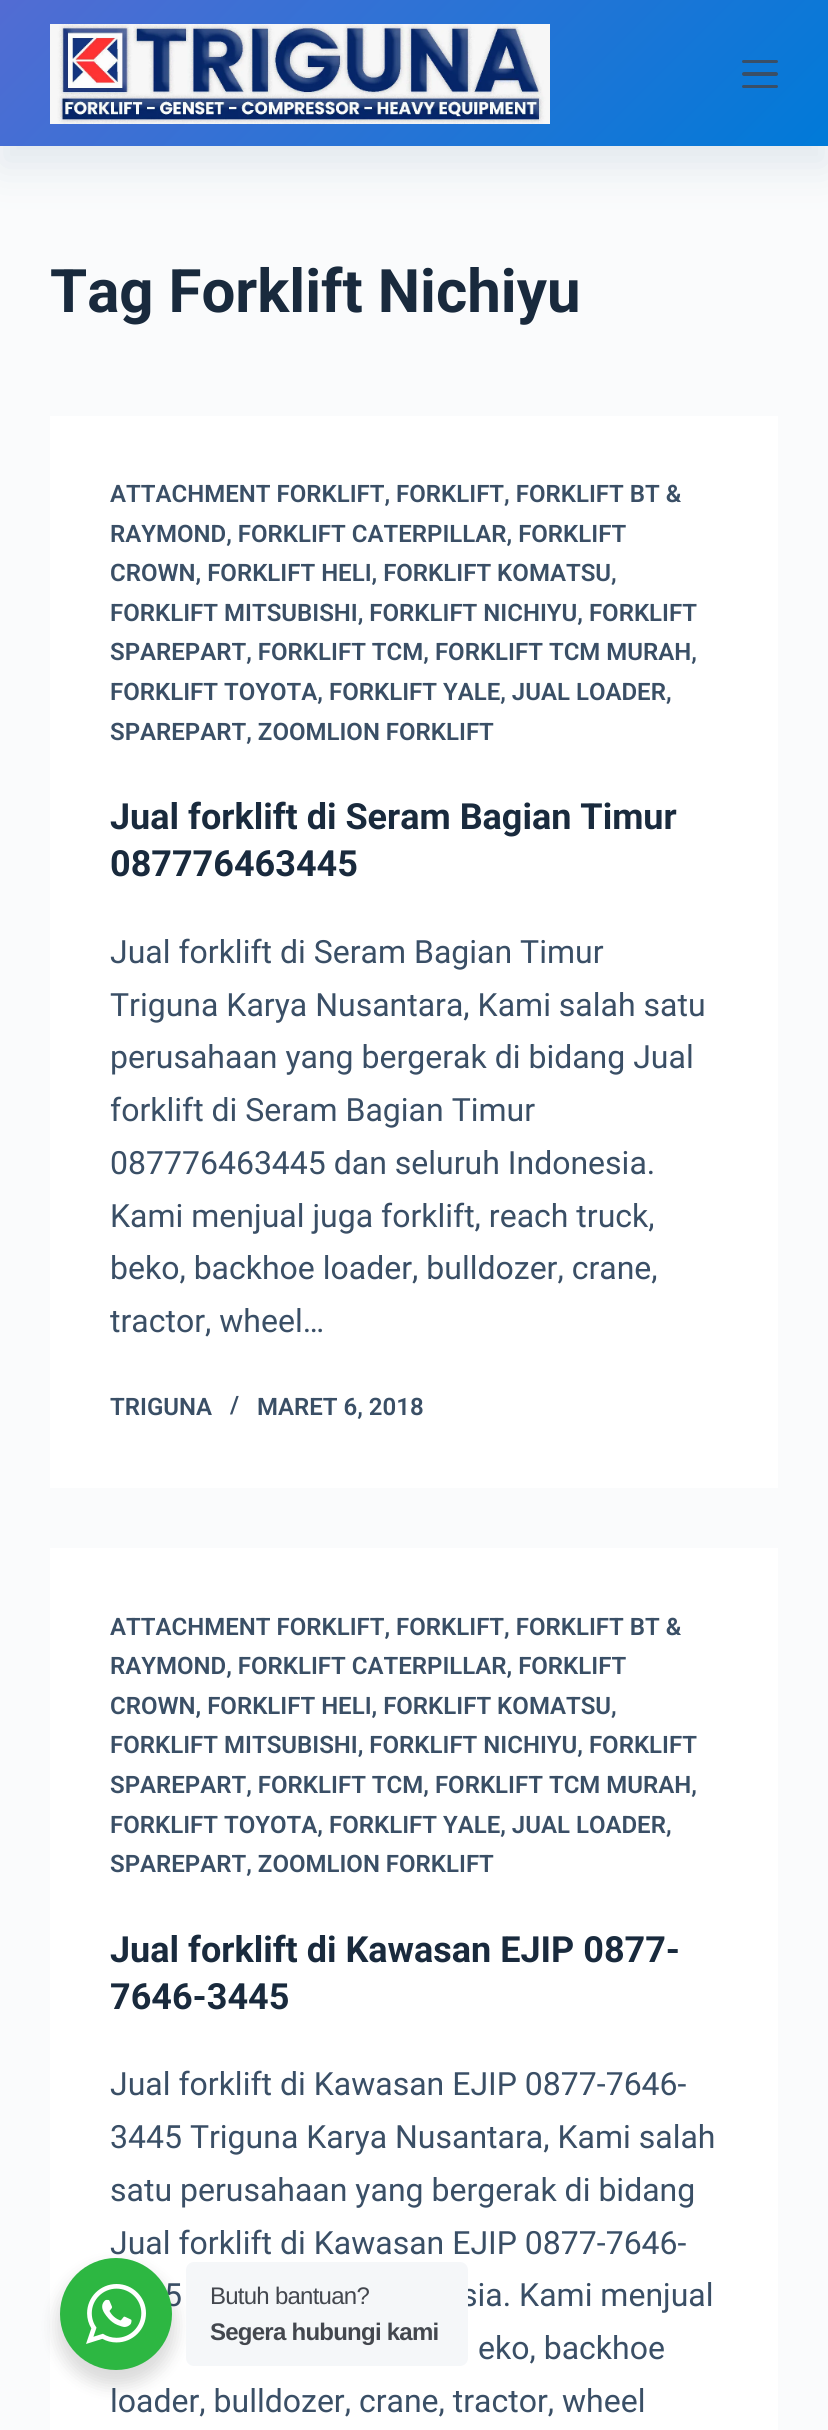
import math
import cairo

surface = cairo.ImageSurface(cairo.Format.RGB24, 828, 2430)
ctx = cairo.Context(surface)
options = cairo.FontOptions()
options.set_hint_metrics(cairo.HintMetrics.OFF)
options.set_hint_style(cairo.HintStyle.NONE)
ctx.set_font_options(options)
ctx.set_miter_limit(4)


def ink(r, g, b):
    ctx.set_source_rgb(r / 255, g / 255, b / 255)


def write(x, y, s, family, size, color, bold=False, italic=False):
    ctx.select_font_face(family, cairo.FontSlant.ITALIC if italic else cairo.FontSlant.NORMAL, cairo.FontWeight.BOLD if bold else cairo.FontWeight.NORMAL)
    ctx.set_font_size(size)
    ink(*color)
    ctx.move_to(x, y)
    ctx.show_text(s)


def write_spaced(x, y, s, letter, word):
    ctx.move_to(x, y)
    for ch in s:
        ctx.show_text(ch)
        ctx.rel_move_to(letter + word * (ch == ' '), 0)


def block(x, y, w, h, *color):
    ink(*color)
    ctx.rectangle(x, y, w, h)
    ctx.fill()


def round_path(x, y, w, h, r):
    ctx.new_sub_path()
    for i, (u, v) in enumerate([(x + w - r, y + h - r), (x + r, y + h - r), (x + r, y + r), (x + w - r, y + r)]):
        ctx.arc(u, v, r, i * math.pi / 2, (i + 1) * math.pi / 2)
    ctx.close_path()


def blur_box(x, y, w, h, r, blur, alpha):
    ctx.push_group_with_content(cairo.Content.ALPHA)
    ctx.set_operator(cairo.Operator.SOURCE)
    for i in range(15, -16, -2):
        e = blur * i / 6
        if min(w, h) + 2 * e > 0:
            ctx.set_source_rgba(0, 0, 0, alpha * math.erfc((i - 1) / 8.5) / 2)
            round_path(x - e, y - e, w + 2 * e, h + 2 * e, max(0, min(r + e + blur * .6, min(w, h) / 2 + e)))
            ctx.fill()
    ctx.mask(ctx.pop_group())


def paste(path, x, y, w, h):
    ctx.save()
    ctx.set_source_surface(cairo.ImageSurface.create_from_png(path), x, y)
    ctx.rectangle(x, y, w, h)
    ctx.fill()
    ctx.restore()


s1 = dict(family="Roboto", size=60, color=(25, 42, 61), bold=True)
s2 = dict(family="Roboto SemiBold", size=24, color=(58, 79, 102))
s3 = dict(family="Roboto", size=36, color=(25, 42, 61), bold=True)
s4 = dict(family="Roboto", size=32, color=(58, 79, 102))

ink(250, 251, 252)
ctx.paint()
ink(225, 232, 237)
blur_box(0, 20, 828, 146, 0, 20, 1)
gradient = cairo.LinearGradient(170, -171, 658, 317)
gradient.add_color_stop_rgba(0, 0.322, 0.424, 0.827, 1)
gradient.add_color_stop_rgba(1, 0, 0.478, 0.847, 1)
ctx.set_source(gradient)
ctx.rectangle(0, 0, 828, 146)
ctx.fill()
paste("pic1.png", 50, 24, 500, 100)
ink(58, 79, 102)
round_path(742, 60, 36, 3, 1.5)
ctx.fill()
round_path(742, 72, 36, 4, 2)
ctx.fill()
round_path(742, 85, 36, 3, 1.5)
ctx.fill()
write(50, 312, "Tag Forklift Nichiyu", **s1)
block(50, 416, 728, 1072, 255, 255, 255)
write(110, 502, "ATTACHMENT FORKLIFT, FORKLIFT, FORKLIFT BT &", **s2)
write(110, 542, "RAYMOND, FORKLIFT CATERPILLAR, FORKLIFT", **s2)
write(110, 581, "CROWN, FORKLIFT HELI, FORKLIFT KOMATSU,", **s2)
write(110, 621, "FORKLIFT MITSUBISHI, FORKLIFT NICHIYU, FORKLIFT", **s2)
write(110, 660, "SPAREPART, FORKLIFT TCM, FORKLIFT TCM MURAH,", **s2)
write(110, 700, "FORKLIFT TOYOTA, FORKLIFT YALE, JUAL LOADER,", **s2)
write(110, 740, "SPAREPART, ZOOMLION FORKLIFT", **s2)
write(110, 829, "Jual forklift di Seram Bagian Timur", **s3)
write(110, 876, "087776463445", **s3)
write(110, 963, "Jual forklift di Seram Bagian Timur", **s4)
write(110, 1016, "Triguna Karya Nusantara, Kami salah satu", **s4)
write(110, 1068, "perusahaan yang bergerak di bidang Jual", **s4)
write(110, 1121, "forklift di Seram Bagian Timur", **s4)
write(110, 1174, "087776463445 dan seluruh Indonesia.", **s4)
write(110, 1227, "Kami menjual juga forklift, reach truck,", **s4)
write(110, 1279, "beko, backhoe loader, bulldozer, crane,", **s4)
write(110, 1332, "tractor, wheel…", **s4)
write(110, 1415, "TRIGUNA", **s2)
write(230, 1413, "/", **s2)
write(257, 1415, "MARET 6, 2018", **s2)
block(50, 1548, 728, 882, 255, 255, 255)
write(110, 1635, "ATTACHMENT FORKLIFT, FORKLIFT, FORKLIFT BT &", **s2)
write(110, 1674, "RAYMOND, FORKLIFT CATERPILLAR, FORKLIFT", **s2)
write(110, 1714, "CROWN, FORKLIFT HELI, FORKLIFT KOMATSU,", **s2)
write(110, 1753, "FORKLIFT MITSUBISHI, FORKLIFT NICHIYU, FORKLIFT", **s2)
write(110, 1793, "SPAREPART, FORKLIFT TCM, FORKLIFT TCM MURAH,", **s2)
write(110, 1833, "FORKLIFT TOYOTA, FORKLIFT YALE, JUAL LOADER,", **s2)
write(110, 1872, "SPAREPART, ZOOMLION FORKLIFT", **s2)
write(110, 1962, "Jual forklift di Kawasan EJIP 0877-", **s3)
write(110, 2009, "7646-3445", **s3)
write(110, 2095, "Jual forklift di Kawasan EJIP 0877-7646-", **s4)
write(110, 2148, "3445 Triguna Karya Nusantara, Kami salah", **s4)
write(110, 2201, "satu perusahaan yang bergerak di bidang", **s4)
write(110, 2254, "Jual forklift di Kawasan EJIP 0877-7646-", **s4)
write(164, 2306, "5", **s4)
write(461, 2306, "sia. Kami menjual", **s4)
write(478, 2359, "eko, backhoe", **s4)
write(110, 2412, "loader, bulldozer, crane, tractor, wheel", **s4)
ink(0, 0, 0)
blur_box(56, 2266, 120, 120, 60, 8, 0.14)
ink(45, 183, 66)
ctx.arc(116, 2314, 56, 0, 2 * math.pi)
ctx.fill()
paste("pic2.png", 86, 2284, 60, 60)
ink(245, 247, 249)
round_path(186, 2262, 282, 104, 8)
ctx.fill()
ctx.select_font_face("Liberation Sans")
ctx.set_font_size(24)
ink(67, 71, 78)
write_spaced(210, 2304, "Butuh bantuan?", -0.75, 0)
ctx.select_font_face("Liberation Sans", cairo.FontSlant.NORMAL, cairo.FontWeight.BOLD)
write_spaced(210, 2340, "Segera hubungi kami", -0.75, 0)
surface.write_to_png("screenshot.png")
